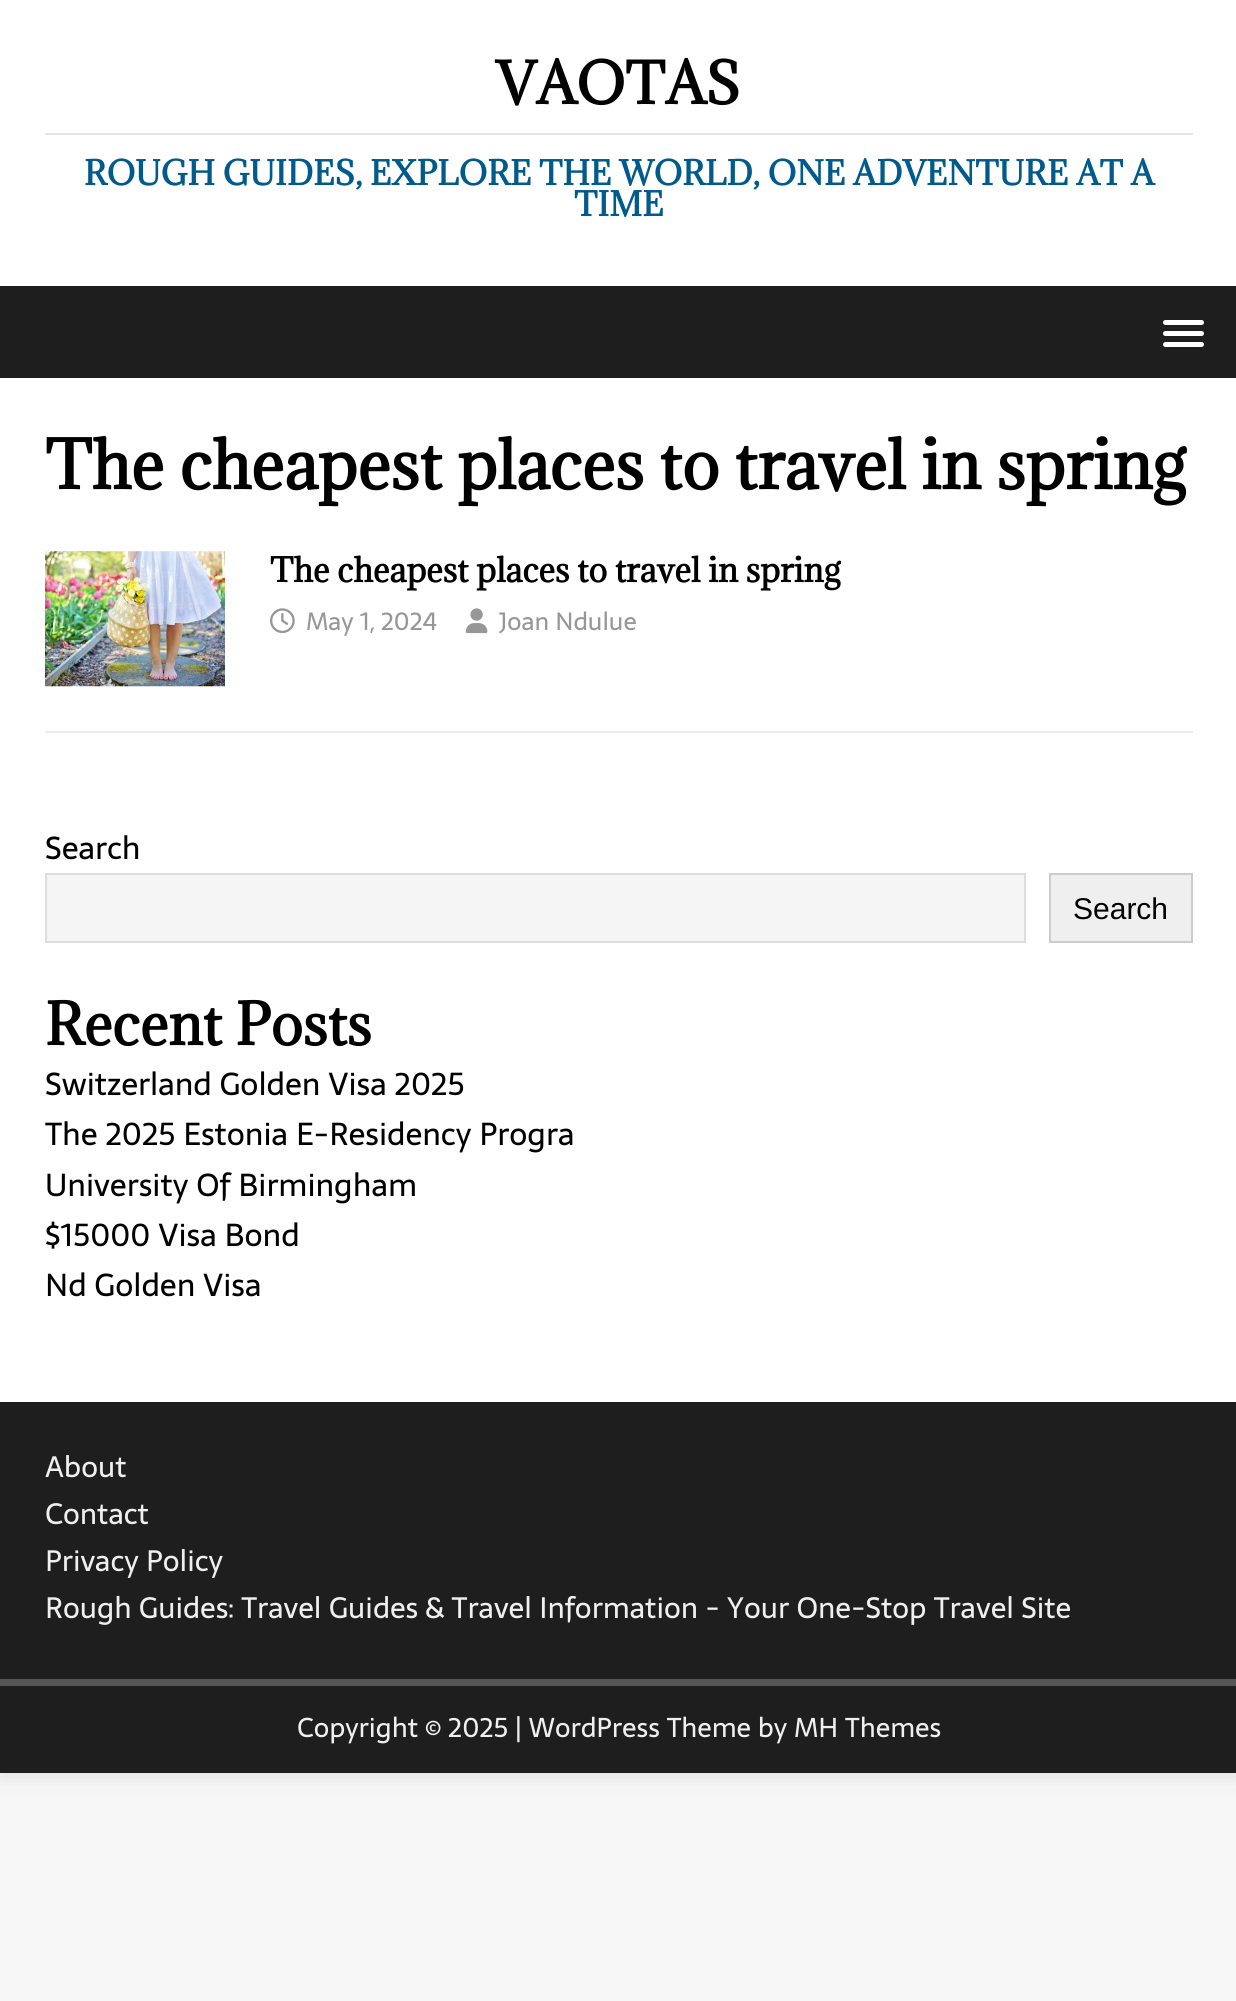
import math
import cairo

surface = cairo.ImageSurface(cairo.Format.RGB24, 1236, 2001)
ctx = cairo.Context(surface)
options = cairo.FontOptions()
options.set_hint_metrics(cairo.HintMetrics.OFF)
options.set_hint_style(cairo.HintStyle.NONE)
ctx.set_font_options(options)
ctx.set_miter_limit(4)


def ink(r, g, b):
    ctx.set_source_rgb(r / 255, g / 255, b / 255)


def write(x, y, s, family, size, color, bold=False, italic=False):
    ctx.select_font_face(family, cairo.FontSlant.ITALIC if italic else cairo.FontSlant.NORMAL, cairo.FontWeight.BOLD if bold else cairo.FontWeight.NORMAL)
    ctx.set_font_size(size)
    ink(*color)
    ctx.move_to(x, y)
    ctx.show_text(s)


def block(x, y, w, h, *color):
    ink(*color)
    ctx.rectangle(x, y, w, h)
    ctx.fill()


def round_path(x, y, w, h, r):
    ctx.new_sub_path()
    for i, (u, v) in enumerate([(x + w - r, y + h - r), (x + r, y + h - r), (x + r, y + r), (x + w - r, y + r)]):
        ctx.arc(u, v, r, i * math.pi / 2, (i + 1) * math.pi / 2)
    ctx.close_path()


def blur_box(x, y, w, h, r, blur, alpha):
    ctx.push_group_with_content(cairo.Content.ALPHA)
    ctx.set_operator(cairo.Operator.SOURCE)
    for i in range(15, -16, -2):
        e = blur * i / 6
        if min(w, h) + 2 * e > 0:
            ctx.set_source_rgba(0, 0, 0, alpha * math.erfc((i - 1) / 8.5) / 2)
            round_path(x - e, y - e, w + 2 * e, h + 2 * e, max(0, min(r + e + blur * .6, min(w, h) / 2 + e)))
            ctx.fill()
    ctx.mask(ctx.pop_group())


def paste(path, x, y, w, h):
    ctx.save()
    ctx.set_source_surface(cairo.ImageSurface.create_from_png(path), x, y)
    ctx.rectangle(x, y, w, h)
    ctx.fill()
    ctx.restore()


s1 = dict(family="Adamina", size=54, color=(0, 0, 0), bold=True)
s2 = dict(family="Adamina", size=31.5, color=(0, 90, 140), bold=True)
s3 = dict(family="Adamina", size=63, color=(0, 0, 0), bold=True)
s4 = dict(family="Adamina", size=31.5, color=(0, 0, 0), bold=True)
s5 = dict(family="Sarala", size=24.75, color=(151, 151, 151))
s6 = dict(family="Sarala", size=31.5, color=(0, 0, 0))
s7 = dict(family="Liberation Sans", size=30, color=(0, 0, 0))
s8 = dict(family="Sarala", size=29.25, color=(239, 239, 239))
s9 = dict(family="Sarala", size=27, color=(239, 239, 239))

ink(247, 247, 247)
ctx.paint()
ink(50, 50, 50)
blur_box(0, 0, 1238, 1773, 0, 11, 0.17)
block(0, 0, 1236, 286, 255, 255, 255)
write(496, 104, "VAOTAS", **s1)
block(45, 133, 1148, 2, 229, 229, 229)
write(84, 185, "ROUGH GUIDES, EXPLORE THE WORLD, ONE ADVENTURE AT A", **s2)
write(574, 216, "TIME", **s2)
block(0, 286, 1236, 92, 31, 30, 30)
ink(255, 255, 255)
round_path(1163, 320, 41, 5, 2.5)
ctx.fill()
round_path(1163, 331, 41, 5, 2.5)
ctx.fill()
round_path(1163, 342, 41, 5, 2.5)
ctx.fill()
block(0, 378, 1236, 1024, 255, 255, 255)
write(45, 489, "The cheapest places to travel in spring", **s3)
block(45, 731, 1148, 2, 235, 235, 235)
paste("pic1.png", 45, 551, 180, 136)
write(270, 582, "The cheapest places to travel in spring", **s4)
paste("pic2.png", 270, 608, 25, 26)
write(306, 630, "May 1, 2024", **s5)
paste("pic3.png", 465, 608, 23, 26)
write(499, 630, "Joan Ndulue", **s5)
write(45, 859, "Search", **s6)
ink(245, 245, 245)
ctx.rectangle(46, 874, 979, 68)
ctx.fill_preserve()
ink(221, 221, 221)
ctx.stroke()
ink(239, 239, 239)
ctx.rectangle(1050, 874, 142, 68)
ctx.fill_preserve()
ink(204, 204, 204)
ctx.stroke()
write(1073, 919, "Search", **s7)
write(45, 1045, "Recent Posts", **s1)
write(45, 1095, "Switzerland Golden Visa 2025", **s6)
write(45, 1145, "The 2025 Estonia E-Residency Progra", **s6)
write(45, 1196, "University Of Birmingham", **s6)
write(45, 1246, "$15000 Visa Bond", **s6)
write(45, 1296, "Nd Golden Visa", **s6)
block(0, 1402, 1236, 277, 31, 30, 30)
write(45, 1477, "About", **s8)
write(45, 1524, "Contact", **s8)
write(45, 1571, "Privacy Policy", **s8)
write(45, 1618, "Rough Guides: Travel Guides & Travel Information - Your One-Stop Travel Site", **s8)
block(0, 1686, 1236, 87, 31, 30, 30)
block(0, 1679, 1236, 7, 85, 85, 85)
write(297, 1737, "Copyright © 2025 | WordPress Theme by MH Themes", **s9)
surface.write_to_png("screenshot.png")
